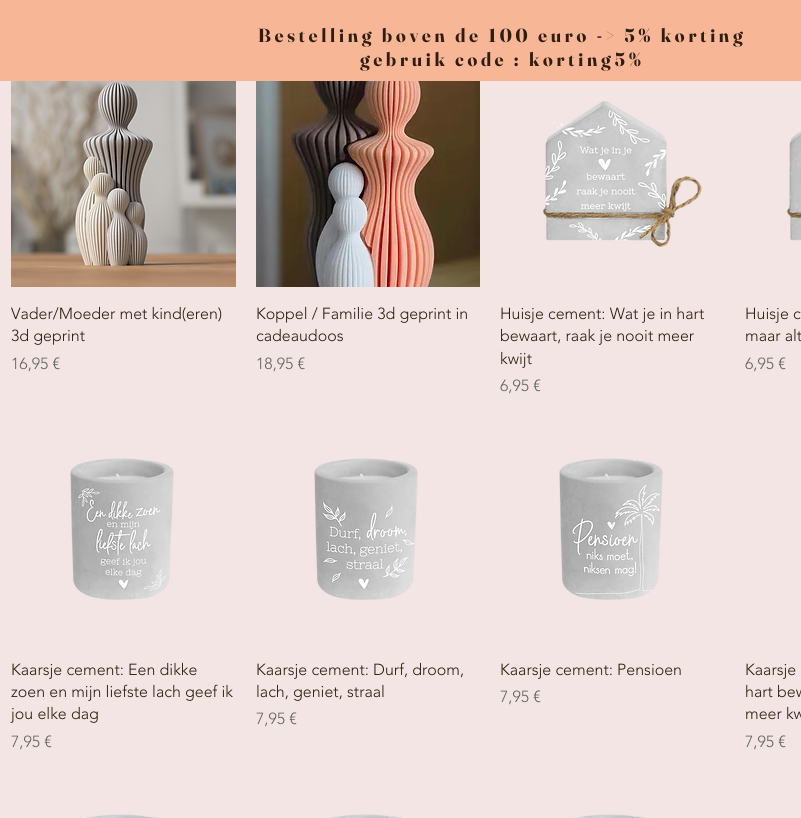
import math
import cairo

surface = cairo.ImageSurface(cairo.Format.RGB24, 801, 818)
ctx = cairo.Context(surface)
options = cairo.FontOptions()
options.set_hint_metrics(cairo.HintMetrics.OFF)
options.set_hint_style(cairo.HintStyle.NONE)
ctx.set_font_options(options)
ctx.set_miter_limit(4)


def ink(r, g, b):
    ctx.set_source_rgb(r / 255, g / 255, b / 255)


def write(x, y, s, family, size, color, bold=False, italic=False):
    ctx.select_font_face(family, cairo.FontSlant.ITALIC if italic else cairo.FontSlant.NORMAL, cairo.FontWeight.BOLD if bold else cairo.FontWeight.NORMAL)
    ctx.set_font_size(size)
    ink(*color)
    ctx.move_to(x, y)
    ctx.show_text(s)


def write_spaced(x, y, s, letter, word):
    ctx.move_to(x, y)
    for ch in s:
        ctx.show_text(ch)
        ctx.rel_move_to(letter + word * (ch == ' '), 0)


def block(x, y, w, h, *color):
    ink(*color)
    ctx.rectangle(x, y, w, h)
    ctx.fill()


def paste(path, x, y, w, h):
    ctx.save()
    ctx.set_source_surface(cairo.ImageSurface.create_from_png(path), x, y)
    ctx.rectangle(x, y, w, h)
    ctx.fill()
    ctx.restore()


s1 = dict(family="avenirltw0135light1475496 Light", size=16, color=(48, 29, 16))
s2 = dict(family="avenirltw0135light1475496 Light", size=16, color=(99, 98, 96))

ink(242, 229, 228)
ctx.paint()
block(0, 0, 801, 81, 247, 183, 151)
ctx.select_font_face("Fraunces", cairo.FontSlant.NORMAL, cairo.FontWeight.BOLD)
ctx.set_font_size(19)
ink(48, 29, 16)
write_spaced(258, 42, "Bestelling boven de 100 euro -> 5% korting", 3.8, 0)
write_spaced(360, 66, "gebruik code : korting5%", 3.8, 0)
paste("pic1.png", 11, 81, 225, 206)
write(11, 319, "Vader/Moeder met kind(eren)", **s1)
write(11, 341, "3d geprint", **s1)
write(11, 369, "16,95 €", **s2)
paste("pic2.png", 256, 81, 224, 206)
write(256, 319, "Koppel / Familie 3d geprint in", **s1)
write(256, 341, "cadeaudoos", **s1)
write(256, 369, "18,95 €", **s2)
paste("pic3.png", 543, 101, 159, 146)
write(500, 319, "Huisje cement: Wat je in hart", **s1)
write(500, 341, "bewaart, raak je nooit meer", **s1)
write(500, 364, "kwijt", **s1)
write(500, 391, "6,95 €", **s2)
paste("pic4.png", 787, 131, 14, 110)
write(745, 319, "Huisje c", **s1)
write(745, 341, "maar alt", **s1)
write(745, 369, "6,95 €", **s2)
paste("pic5.png", 70, 458, 104, 142)
write(11, 675, "Kaarsje cement: Een dikke", **s1)
write(11, 697, "zoen en mijn liefste lach geef ik", **s1)
write(11, 719, "jou elke dag", **s1)
write(11, 747, "7,95 €", **s2)
paste("pic6.png", 314, 458, 104, 142)
write(256, 675, "Kaarsje cement: Durf, droom,", **s1)
write(256, 697, "lach, geniet, straal", **s1)
write(256, 724, "7,95 €", **s2)
paste("pic7.png", 559, 458, 104, 142)
write(500, 675, "Kaarsje cement: Pensioen", **s1)
write(500, 702, "7,95 €", **s2)
write(745, 675, "Kaarsje", **s1)
write(745, 697, "hart bew", **s1)
write(745, 719, "meer kw", **s1)
write(745, 747, "7,95 €", **s2)
paste("pic8.png", 86, 814, 72, 4)
paste("pic8.png", 330, 814, 72, 4)
paste("pic8.png", 575, 814, 72, 4)
surface.write_to_png("screenshot.png")
